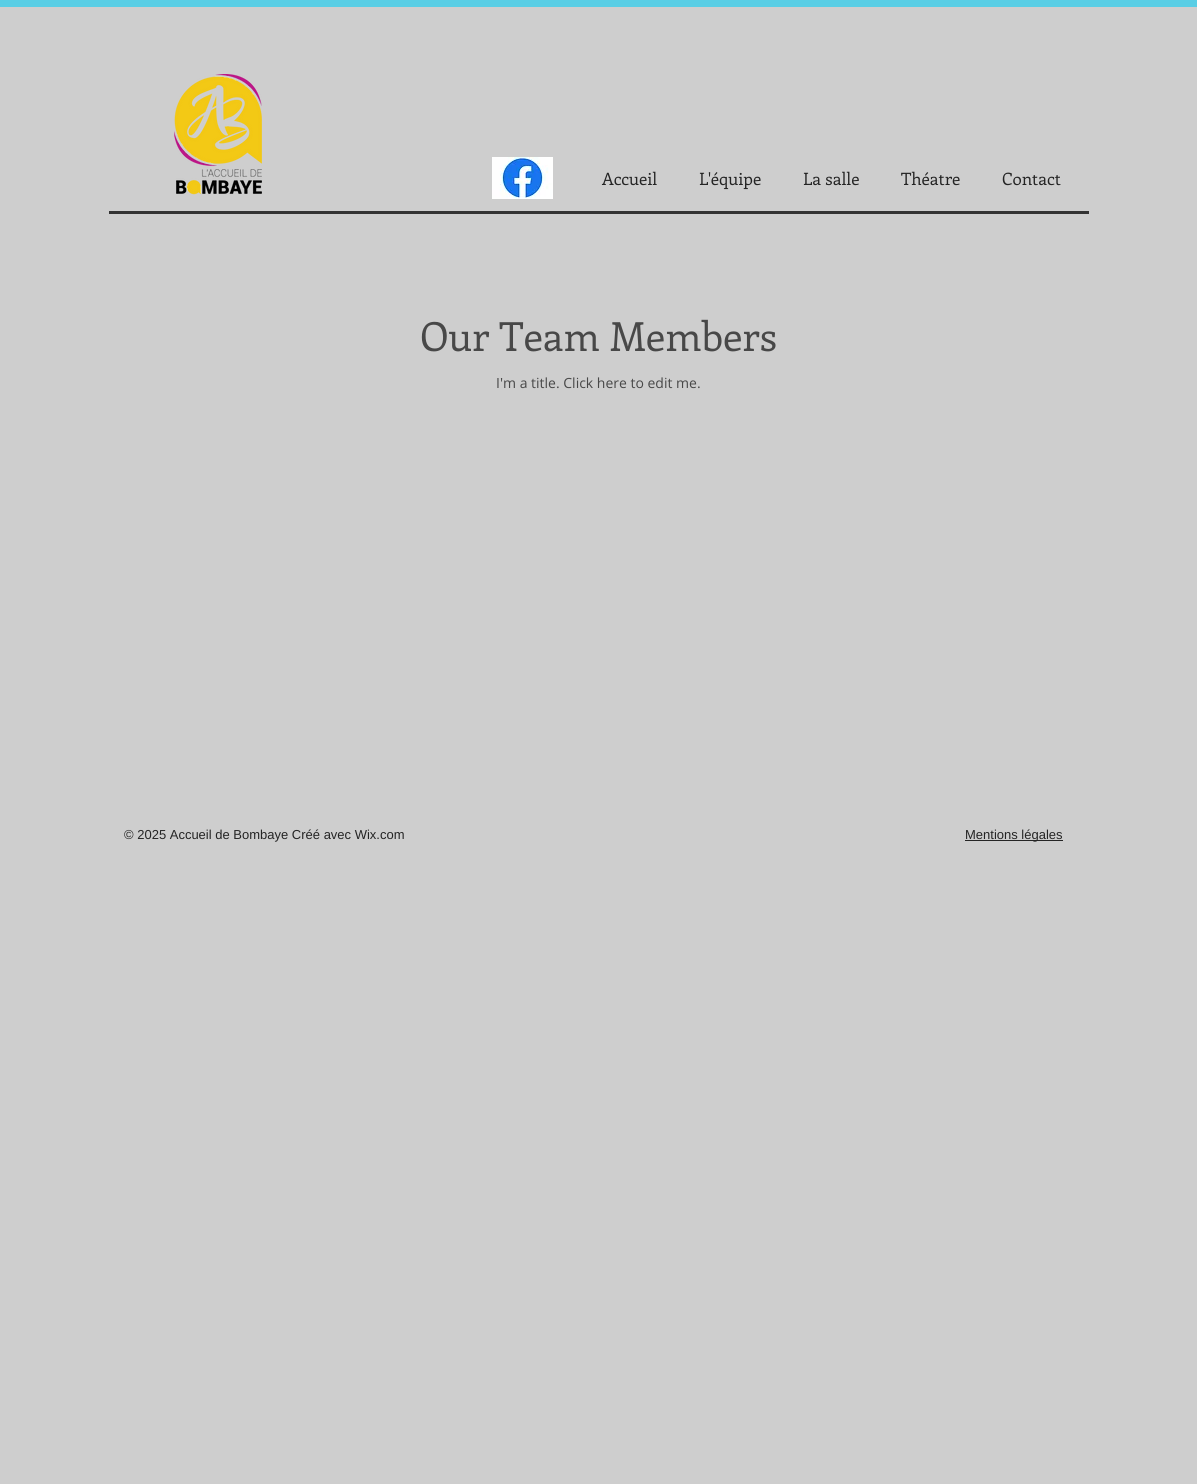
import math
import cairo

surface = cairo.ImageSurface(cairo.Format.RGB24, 1197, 1484)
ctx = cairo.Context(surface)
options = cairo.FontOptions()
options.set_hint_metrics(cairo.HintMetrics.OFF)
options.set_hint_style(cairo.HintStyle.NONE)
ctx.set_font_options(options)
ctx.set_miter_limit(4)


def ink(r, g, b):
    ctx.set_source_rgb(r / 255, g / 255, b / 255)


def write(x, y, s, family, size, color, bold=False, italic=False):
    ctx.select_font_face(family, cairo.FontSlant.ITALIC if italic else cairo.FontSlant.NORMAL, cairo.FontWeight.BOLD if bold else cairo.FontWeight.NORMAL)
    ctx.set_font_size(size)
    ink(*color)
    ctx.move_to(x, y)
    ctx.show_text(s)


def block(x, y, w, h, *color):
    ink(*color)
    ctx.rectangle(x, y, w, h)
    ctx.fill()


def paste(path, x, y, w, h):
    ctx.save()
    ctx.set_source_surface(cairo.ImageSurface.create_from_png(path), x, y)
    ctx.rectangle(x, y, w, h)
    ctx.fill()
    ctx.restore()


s1 = dict(family="Enriqueta", size=17, color=(36, 36, 36))
s2 = dict(family="Enriqueta", size=40, color=(72, 72, 72))
s3 = dict(family="Open Sans", size=14, color=(72, 72, 72))
s4 = dict(family="Liberation Sans", size=13, color=(36, 36, 36))

ink(206, 206, 206)
ctx.paint()
block(0, 0, 1197, 7, 89, 206, 229)
paste("pic1.png", 174, 74, 88, 121)
paste("pic2.png", 492, 157, 61, 42)
write(602, 185, "Accueil", **s1)
write(699, 185, "L'équipe", **s1)
write(803, 185, "La salle", **s1)
write(901, 185, "Théatre", **s1)
write(1002, 185, "Contact", **s1)
block(109, 211, 980, 3, 51, 51, 51)
write(420, 351, "Our Team Members", **s2)
write(496, 388, "I'm a title. Click here to edit me.", **s3)
write(124, 839, "© 2025 Accueil de Bombaye Créé avec Wix.com", **s4)
block(965, 840, 98, 1, 36, 36, 36)
write(965, 839, "Mentions légales", **s4)
surface.write_to_png("screenshot.png")
